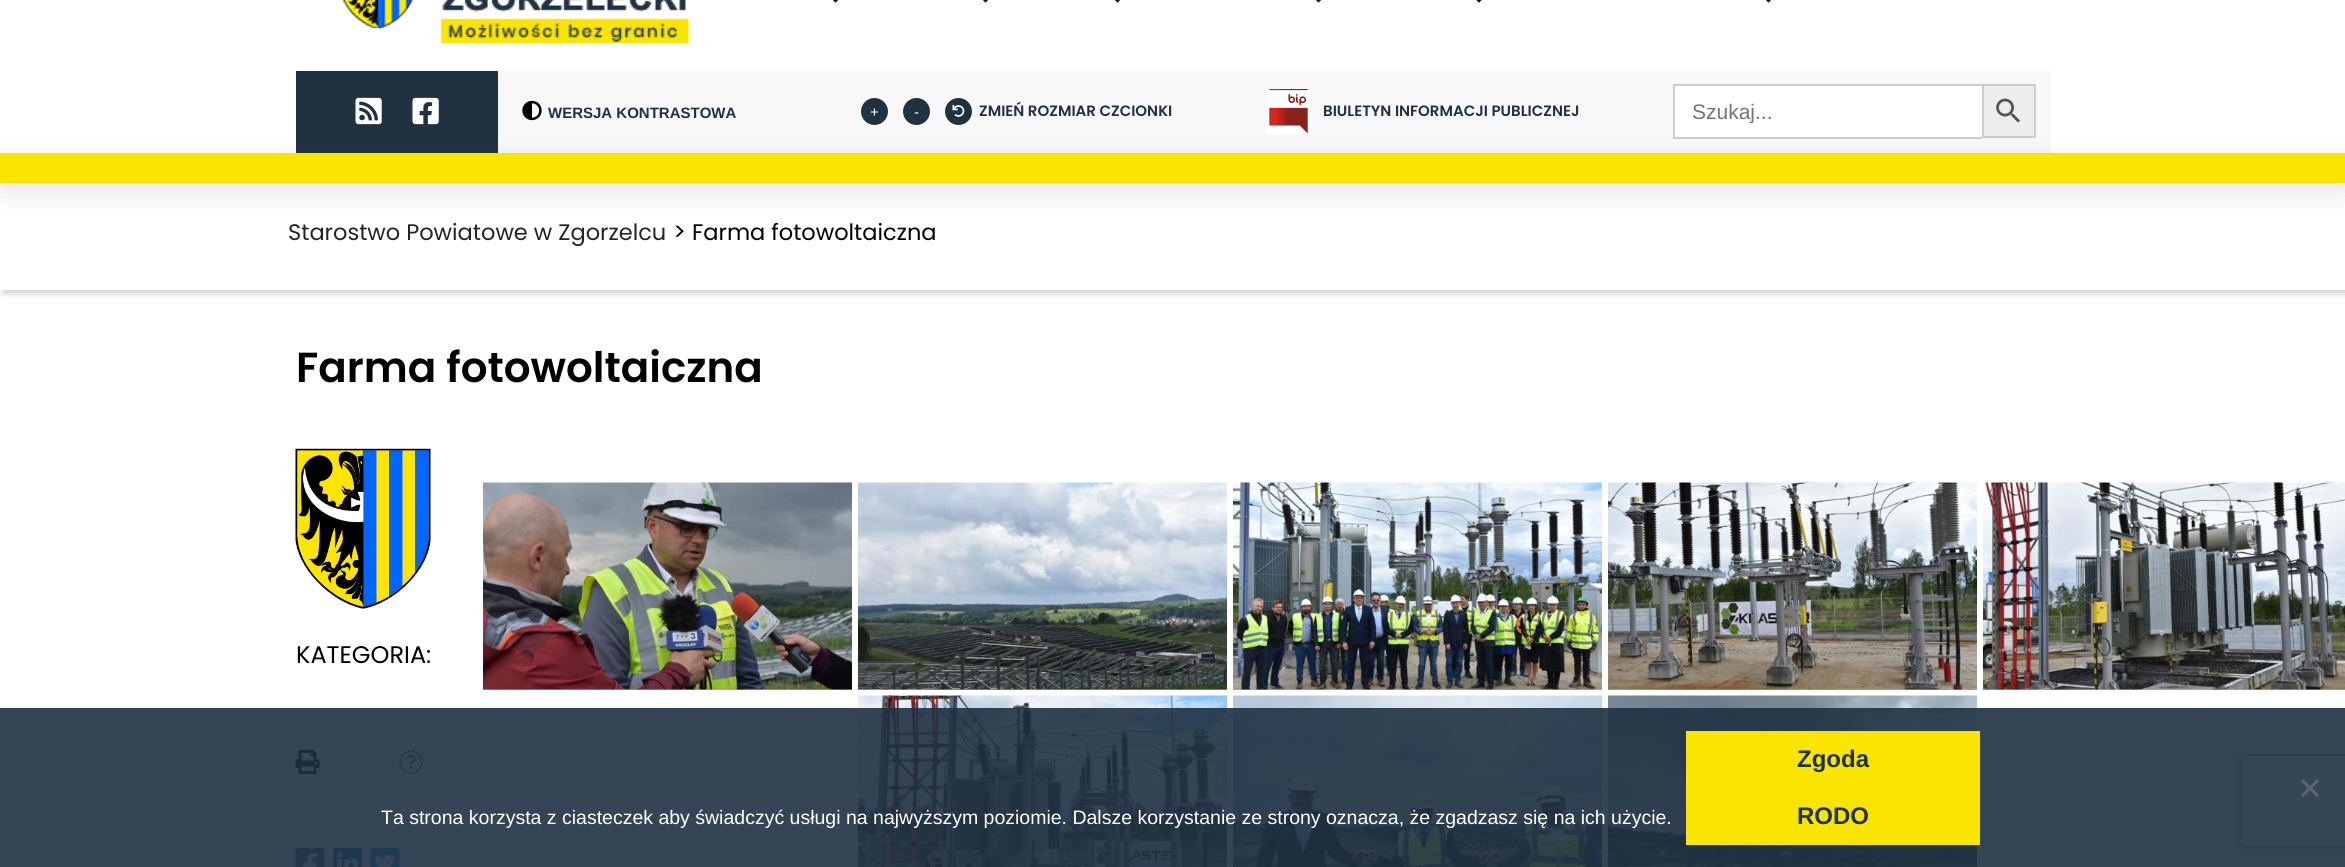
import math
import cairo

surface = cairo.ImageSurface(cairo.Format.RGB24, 2345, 867)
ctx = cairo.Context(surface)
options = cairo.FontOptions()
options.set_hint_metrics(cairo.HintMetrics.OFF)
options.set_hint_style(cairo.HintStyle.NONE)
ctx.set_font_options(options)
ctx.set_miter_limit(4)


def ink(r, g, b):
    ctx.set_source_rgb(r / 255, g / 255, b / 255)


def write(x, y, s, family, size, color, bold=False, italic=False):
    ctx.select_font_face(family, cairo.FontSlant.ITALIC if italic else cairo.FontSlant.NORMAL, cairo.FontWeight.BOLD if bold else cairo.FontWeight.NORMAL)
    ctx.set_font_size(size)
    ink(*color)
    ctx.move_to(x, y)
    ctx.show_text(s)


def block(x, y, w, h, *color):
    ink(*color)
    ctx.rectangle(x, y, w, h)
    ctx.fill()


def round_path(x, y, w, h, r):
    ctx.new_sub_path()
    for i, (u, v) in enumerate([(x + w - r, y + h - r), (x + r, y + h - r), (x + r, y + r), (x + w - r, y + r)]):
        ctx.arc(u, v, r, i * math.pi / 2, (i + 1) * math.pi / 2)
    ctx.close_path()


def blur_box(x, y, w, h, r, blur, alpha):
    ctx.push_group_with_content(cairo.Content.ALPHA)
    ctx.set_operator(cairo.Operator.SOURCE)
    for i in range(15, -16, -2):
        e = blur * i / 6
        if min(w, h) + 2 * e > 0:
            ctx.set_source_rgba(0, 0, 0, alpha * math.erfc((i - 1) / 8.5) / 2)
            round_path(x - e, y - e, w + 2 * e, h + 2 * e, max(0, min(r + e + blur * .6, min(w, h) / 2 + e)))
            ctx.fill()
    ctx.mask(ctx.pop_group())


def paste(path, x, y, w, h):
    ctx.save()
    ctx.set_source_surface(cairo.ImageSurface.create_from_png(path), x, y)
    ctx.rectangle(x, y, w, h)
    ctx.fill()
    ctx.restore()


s1 = dict(family="Liberation Sans", size=15, color=(32, 49, 66), bold=True)
s2 = dict(family="Liberation Sans", size=15, color=(255, 255, 255))
s3 = dict(family="Poppins SemiBold", size=15, color=(32, 49, 66))
s4 = dict(family="Liberation Sans", size=21, color=(117, 117, 117))
s5 = dict(family="Poppins", size=22.5, color=(36, 36, 36))
s6 = dict(family="Poppins", size=24, color=(0, 0, 0))
s7 = dict(family="Poppins", size=22.5, color=(0, 0, 0))
s8 = dict(family="Poppins SemiBold", size=42, color=(0, 0, 0))
s9 = dict(family="Liberation Sans", size=24, color=(32, 49, 66), bold=True)
s10 = dict(family="Liberation Sans", size=19.5, color=(255, 255, 255))

ink(255, 255, 255)
ctx.paint()
paste("pic1.png", 342, 0, 347, 43)
paste("pic2.png", 833, 0, 5, 3)
paste("pic2.png", 983, 0, 5, 3)
paste("pic2.png", 1115, 0, 5, 3)
paste("pic2.png", 1316, 0, 5, 3)
paste("pic3.png", 1476, 0, 6, 3)
paste("pic2.png", 1766, 0, 5, 3)
block(498, 71, 1553, 82, 248, 248, 248)
block(296, 71, 202, 82, 32, 49, 66)
paste("pic4.png", 355, 97, 27, 28)
paste("pic5.png", 412, 97, 27, 28)
paste("pic6.png", 522, 100, 20, 21)
write(548, 118, "WERSJA KONTRASTOWA", **s1)
ctx.new_path()
ctx.arc(874.5, 111.5, 13.5, 0, 2 * math.pi)
ctx.fill()
write(870, 117, "+", **s2)
ink(32, 49, 66)
ctx.new_path()
ctx.arc(916.5, 111.5, 13.5, 0, 2 * math.pi)
ctx.fill()
write(914, 117, "-", **s2)
ink(32, 49, 66)
ctx.new_path()
ctx.arc(958.5, 111.5, 13.5, 0, 2 * math.pi)
ctx.fill()
paste("pic7.png", 952, 105, 13, 12)
write(979, 116, "ZMIEŃ ROZMIAR CZCIONKI", **s3)
paste("pic8.png", 1266, 89, 45, 45)
write(1323, 116, "BIULETYN INFORMACJI PUBLICZNEJ", **s3)
block(1675, 86, 307, 51, 255, 255, 255)
block(1673, 84, 309, 2, 204, 204, 204)
block(1673, 137, 309, 2, 204, 204, 204)
block(1673, 84, 2, 54, 204, 204, 204)
ctx.save()
ctx.rectangle(1692, 99, 272, 24)
ctx.clip()
write(1692, 119, "Szukaj...", **s4)
ctx.restore()
ink(237, 237, 237)
ctx.rectangle(1983, 85, 52, 52)
ctx.fill_preserve()
ink(204, 204, 204)
ctx.stroke()
paste("pic9.png", 1996, 98, 25, 25)
ink(211, 211, 211)
blur_box(3, 158, 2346, 136, 0, 3, 1)
block(0, 183, 2345, 107, 255, 255, 255)
ink(86, 84, 84)
blur_box(0, 162, 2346, 30, 0, 13.5, 0.16)
block(0, 153, 2345, 30, 249, 229, 0)
write(288, 240, "Starostwo Powiatowe w Zgorzelcu", **s5)
write(673, 240, ">", **s6)
write(692, 240, "Farma fotowoltaiczna", **s7)
write(296, 382, "Farma fotowoltaiczna", **s8)
paste("pic10.png", 295, 448, 136, 161)
write(296, 663, "KATEGORIA:", **s6)
paste("pic11.png", 295, 750, 25, 24)
paste("pic12.png", 399, 750, 24, 24)
paste("pic13.png", 295, 848, 30, 19)
paste("pic14.png", 333, 848, 29, 19)
paste("pic15.png", 370, 848, 30, 19)
block(483, 689, 369, 1, 179, 179, 179)
paste("pic16.png", 483, 482, 369, 208)
block(858, 689, 369, 1, 179, 179, 179)
paste("pic17.png", 858, 482, 369, 208)
block(1233, 689, 369, 1, 179, 179, 179)
paste("pic18.png", 1233, 482, 369, 208)
block(1608, 689, 369, 1, 179, 179, 179)
paste("pic19.png", 1608, 482, 369, 208)
block(1983, 689, 362, 1, 179, 179, 179)
paste("pic20.png", 1983, 482, 362, 208)
paste("pic21.png", 858, 695, 369, 172)
paste("pic22.png", 1233, 695, 369, 172)
paste("pic23.png", 1608, 695, 369, 172)
ctx.save()
ctx.set_fill_rule(cairo.FillRule.EVEN_ODD)
ctx.new_path()
ctx.move_to(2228, 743)
ctx.line_to(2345, 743)
ctx.line_to(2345, 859)
ctx.line_to(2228, 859)
ctx.close_path()
ctx.move_to(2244, 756)
ctx.line_to(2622, 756)
ctx.curve_to(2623.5, 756, 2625, 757.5, 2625, 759)
ctx.line_to(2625, 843)
ctx.curve_to(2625, 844.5, 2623.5, 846, 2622, 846)
ctx.line_to(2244, 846)
ctx.curve_to(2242.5, 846, 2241, 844.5, 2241, 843)
ctx.line_to(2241, 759)
ctx.curve_to(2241, 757.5, 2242.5, 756, 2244, 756)
ctx.close_path()
ctx.clip()
ink(128, 128, 128)
blur_box(2241, 756, 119, 90, 3, 4, 1)
ctx.restore()
ctx.set_source_rgba(0.122, 0.192, 0.263, 0.9)
ctx.rectangle(0, 708, 2345, 159)
ctx.fill()
block(1686, 731, 294, 114, 249, 229, 0)
write(1797, 767, "Zgoda", **s9)
write(1797, 824, "RODO", **s9)
ink(91, 99, 107)
ctx.new_path()
ctx.move_to(2317, 779)
ctx.line_to(2319, 781.5)
ctx.line_to(2303, 797.5)
ctx.line_to(2301, 795)
ctx.close_path()
ctx.fill()
ctx.new_path()
ctx.move_to(2301, 781.5)
ctx.line_to(2303, 779)
ctx.line_to(2319, 795)
ctx.line_to(2317, 797.5)
ctx.close_path()
ctx.fill()
write(381, 824, "Ta strona korzysta z ciasteczek aby świadczyć usługi na najwyższym poziomie. Dalsze korzystanie ze strony oznacza, że zgadzasz się na ich użycie.", **s10)
surface.write_to_png("screenshot.png")
